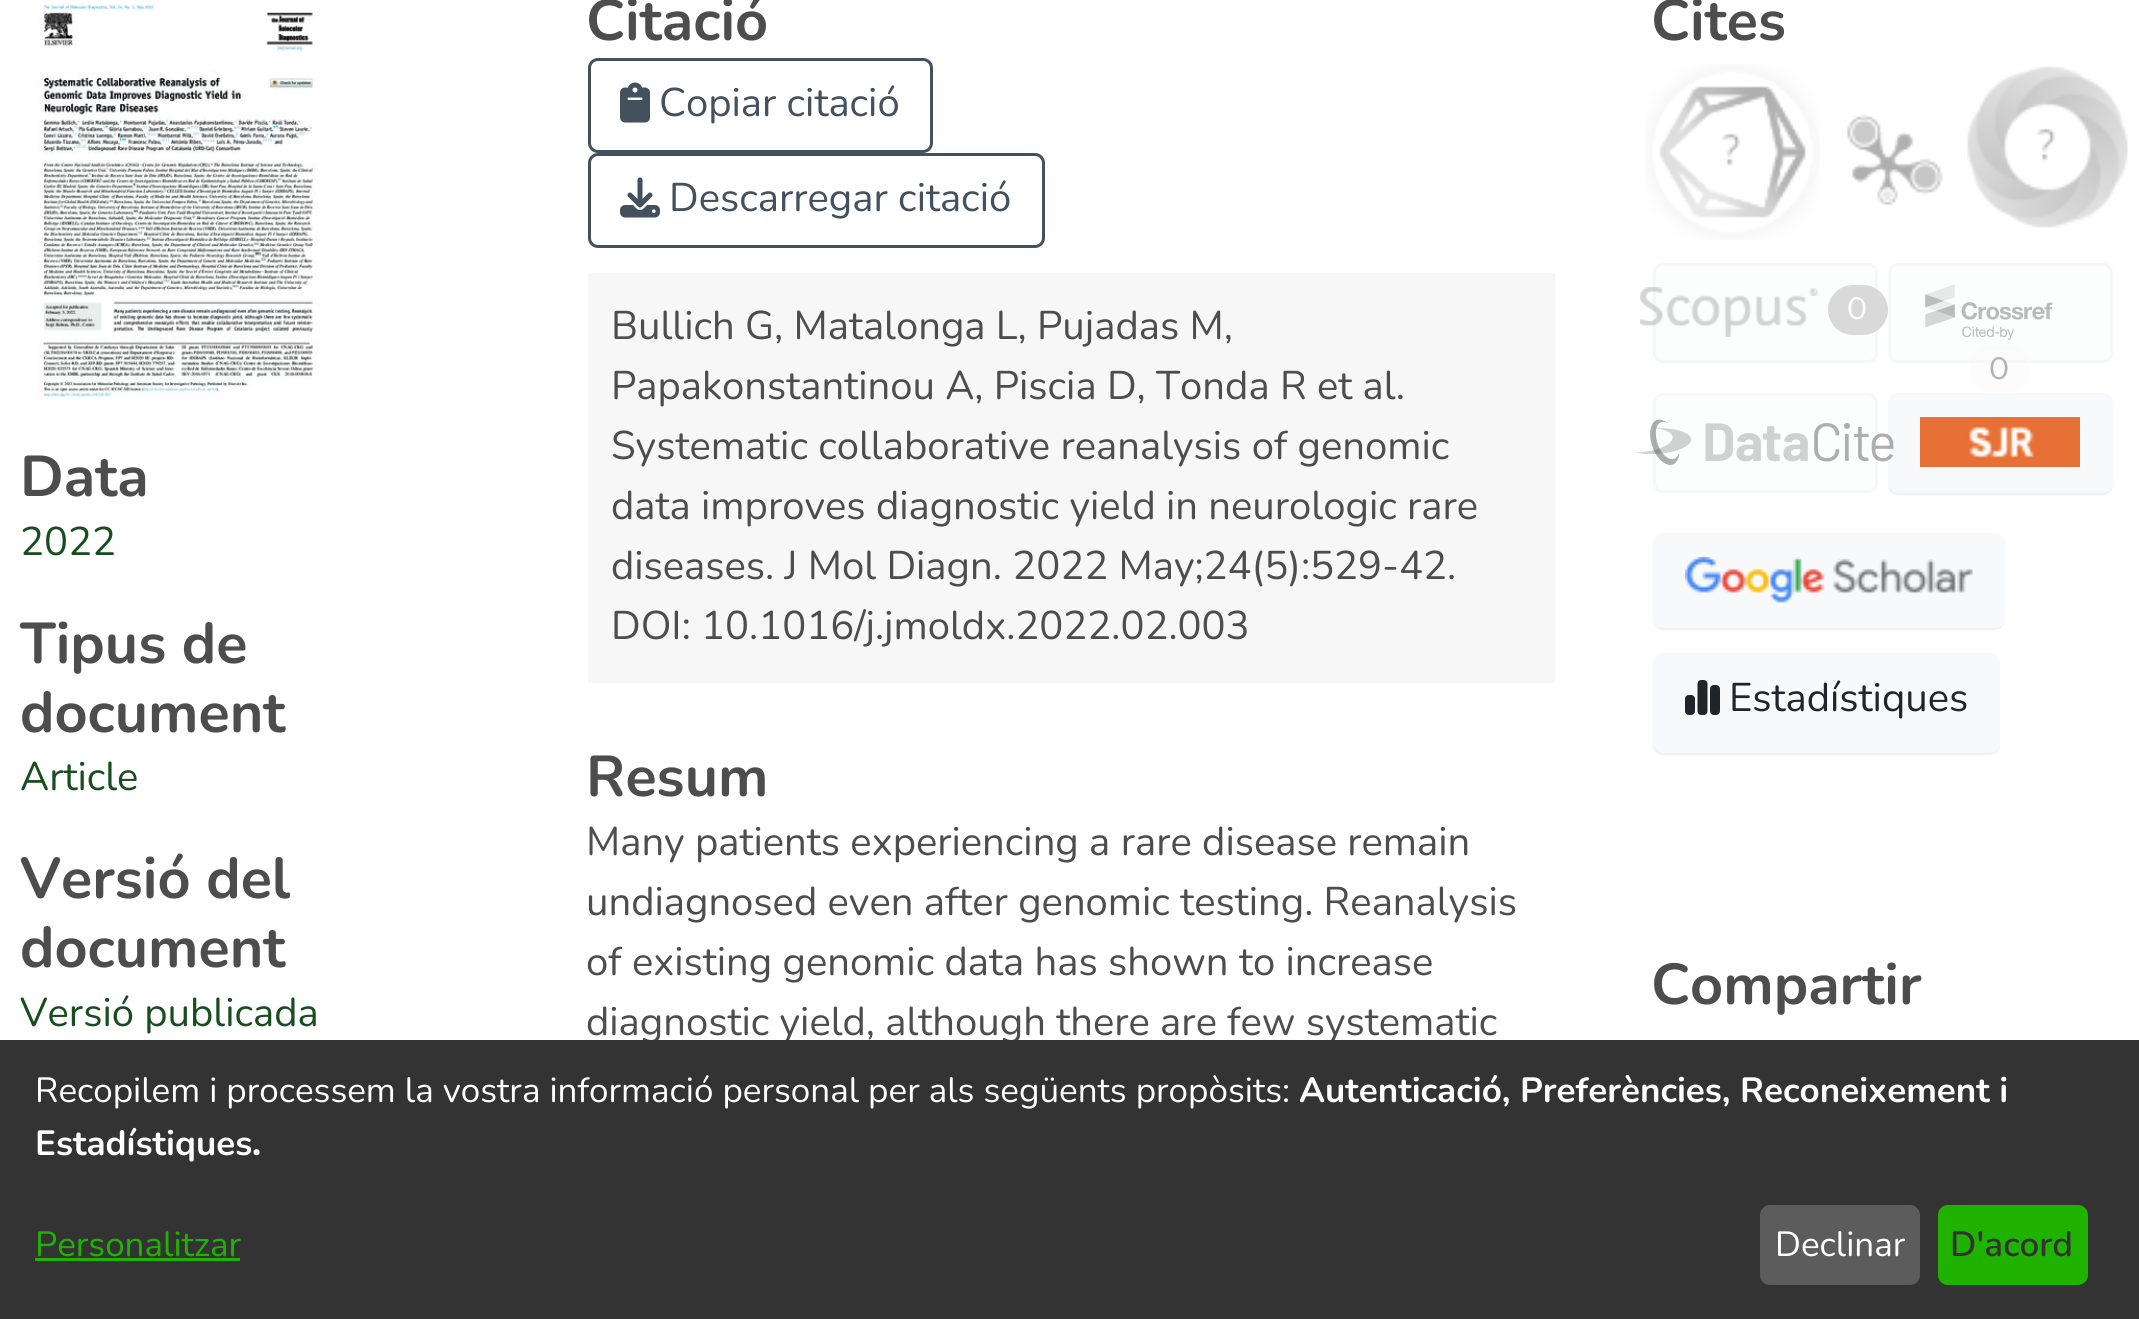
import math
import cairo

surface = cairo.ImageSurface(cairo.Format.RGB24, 2139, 1319)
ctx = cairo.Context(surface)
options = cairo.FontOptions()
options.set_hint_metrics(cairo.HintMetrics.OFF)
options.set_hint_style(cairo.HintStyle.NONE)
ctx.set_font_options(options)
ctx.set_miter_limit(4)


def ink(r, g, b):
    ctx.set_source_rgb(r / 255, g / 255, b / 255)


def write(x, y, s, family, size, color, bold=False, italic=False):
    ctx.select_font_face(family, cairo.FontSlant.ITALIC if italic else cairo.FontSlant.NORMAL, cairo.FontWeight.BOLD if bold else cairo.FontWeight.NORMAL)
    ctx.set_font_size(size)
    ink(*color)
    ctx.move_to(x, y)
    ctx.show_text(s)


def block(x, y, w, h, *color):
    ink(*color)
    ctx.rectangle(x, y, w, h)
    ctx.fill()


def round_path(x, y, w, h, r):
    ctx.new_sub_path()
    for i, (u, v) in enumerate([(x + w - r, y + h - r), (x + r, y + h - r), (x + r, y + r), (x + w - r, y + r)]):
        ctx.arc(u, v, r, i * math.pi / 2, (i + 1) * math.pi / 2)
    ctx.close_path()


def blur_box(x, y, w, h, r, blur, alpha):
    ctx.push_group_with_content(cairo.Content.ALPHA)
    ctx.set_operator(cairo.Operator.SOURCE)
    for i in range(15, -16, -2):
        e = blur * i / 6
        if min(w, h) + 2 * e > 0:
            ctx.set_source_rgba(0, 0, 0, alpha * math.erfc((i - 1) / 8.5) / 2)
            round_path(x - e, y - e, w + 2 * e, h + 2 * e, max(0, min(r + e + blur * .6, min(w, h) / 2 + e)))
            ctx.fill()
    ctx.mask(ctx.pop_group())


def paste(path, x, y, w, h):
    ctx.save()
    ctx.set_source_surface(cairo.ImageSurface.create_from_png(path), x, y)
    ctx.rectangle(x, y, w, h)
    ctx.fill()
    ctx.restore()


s1 = dict(family="Nunito", size=57.5, color=(77, 77, 77), bold=True)
s2 = dict(family="Nunito", size=40, color=(23, 77, 31))
s3 = dict(family="Nunito", size=40, color=(67, 81, 95))
s4 = dict(family="Nunito", size=40, color=(77, 77, 77))
s5 = dict(family="Instrument Sans", size=30, color=(255, 255, 255))
s6 = dict(family="Instrument Sans", size=30, color=(178, 178, 178))
s7 = dict(family="Nunito", size=40, color=(33, 37, 41))
s8 = dict(family="Nunito", size=35, color=(255, 255, 255))
s9 = dict(family="Nunito", size=35, color=(255, 255, 255), bold=True)
s10 = dict(family="Nunito ExtraBold", size=35, color=(255, 255, 255))
s11 = dict(family="Nunito", size=35, color=(31, 179, 0))
s12 = dict(family="Nunito SemiBold", size=35, color=(51, 51, 51))

ink(255, 255, 255)
ctx.paint()
paste("pic1.png", 37, 4, 283, 394)
write(20, 496, "Data", **s1)
write(20, 555, "2022", **s2)
write(20, 663, "Tipus de", **s1)
write(20, 732, "document", **s1)
write(20, 790, "Article", **s2)
write(20, 898, "Versió del", **s1)
write(20, 967, "document", **s1)
write(20, 1026, "Versió publicada", **s2)
write(586, 40, "Citació", **s1)
round_path(589.5, 59.5, 342, 92, 8.5)
ink(67, 81, 95)
ctx.set_line_width(3)
ctx.stroke()
paste("pic2.png", 620, 82, 30, 41)
write(659, 116, "Copiar citació", **s3)
round_path(589.5, 154.5, 454, 92, 8.5)
ctx.stroke()
paste("pic3.png", 620, 177, 40, 41)
write(669, 211, "Descarregar citació", **s3)
block(588, 273, 967, 410, 247, 247, 247)
write(611, 339, "Bullich G, Matalonga L, Pujadas M,", **s4)
write(611, 399, "Papakonstantinou A, Piscia D, Tonda R et al.", **s4)
write(611, 459, "Systematic collaborative reanalysis of genomic", **s4)
write(611, 519, "data improves diagnostic yield in neurologic rare", **s4)
write(611, 579, "diseases. J Mol Diagn. 2022 May;24(5):529-42.", **s4)
write(611, 639, "DOI: 10.1016/j.jmoldx.2022.02.003", **s4)
write(586, 796, "Resum", **s1)
write(586, 855, "Many patients experiencing a rare disease remain", **s4)
write(586, 915, "undiagnosed even after genomic testing. Reanalysis", **s4)
write(586, 975, "of existing genomic data has shown to increase", **s4)
write(586, 1035, "diagnostic yield, although there are few systematic", **s4)
write(1651, 40, "Cites", **s1)
paste("pic4.png", 1645, 64, 175, 176)
paste("pic5.png", 1846, 114, 98, 92)
paste("pic6.png", 1967, 66, 161, 162)
ink(252, 253, 253)
round_path(1654.5, 264.5, 222, 97, 8.5)
ctx.fill_preserve()
ink(246, 247, 249)
ctx.stroke()
paste("pic7.png", 1640, 287, 178, 50)
ink(217, 217, 217)
round_path(1828, 285, 60, 50, 25)
ctx.fill()
write(1847, 319, "0", **s5)
ink(252, 253, 253)
round_path(1889.5, 264.5, 222, 97, 8.5)
ctx.fill_preserve()
ink(246, 247, 249)
ctx.stroke()
paste("pic8.png", 1925, 285, 128, 55)
ink(0, 0, 0)
blur_box(1888, 395, 225, 100, 10, 1, 0.07)
ink(248, 249, 250)
round_path(1889.5, 394.5, 222, 97, 8.5)
ctx.fill_preserve()
ctx.stroke()
ctx.set_source_rgba(0.969, 0.969, 0.969, 0.4)
round_path(1970, 345, 60, 50, 25)
ctx.fill()
write(1989, 379, "0", **s6)
ink(252, 253, 253)
round_path(1654.5, 394.5, 222, 97, 8.5)
ctx.fill_preserve()
ink(246, 247, 249)
ctx.stroke()
paste("pic9.png", 1635, 419, 259, 46)
paste("pic10.png", 1920, 417, 160, 50)
ink(0, 0, 0)
blur_box(1653, 535, 352, 95, 10, 1, 0.07)
ink(248, 249, 250)
round_path(1654.5, 534.5, 349, 92, 8.5)
ctx.fill_preserve()
ctx.stroke()
paste("pic11.png", 1685, 557, 288, 46)
ink(0, 0, 0)
blur_box(1653, 655, 347, 100, 10, 1, 0.07)
ink(248, 249, 250)
round_path(1654.5, 654.5, 344, 97, 8.5)
ctx.fill_preserve()
ctx.stroke()
paste("pic12.png", 1685, 680, 35, 35)
write(1729, 711, "Estadístiques", **s7)
write(1651, 1004, "Compartir", **s1)
block(0, 1040, 2139, 279, 51, 51, 51)
write(35, 1102, "Recopilem i processem la vostra informació personal per als següents propòsits:", **s8)
write(1299, 1102, "Autenticació, Preferències, Reconeixement i", **s9)
write(35, 1155, "Estadístiques", **s9)
write(252, 1155, ".", **s10)
write(35, 1256, "Personalitzar", **s11)
block(35, 1258, 205, 3, 31, 179, 0)
ink(92, 92, 92)
round_path(1760, 1205, 160, 80, 10)
ctx.fill()
write(1775, 1256, "Declinar", **s8)
ink(31, 179, 0)
round_path(1938, 1205, 150, 80, 10)
ctx.fill()
write(1950, 1256, "D'acord", **s12)
surface.write_to_png("screenshot.png")
